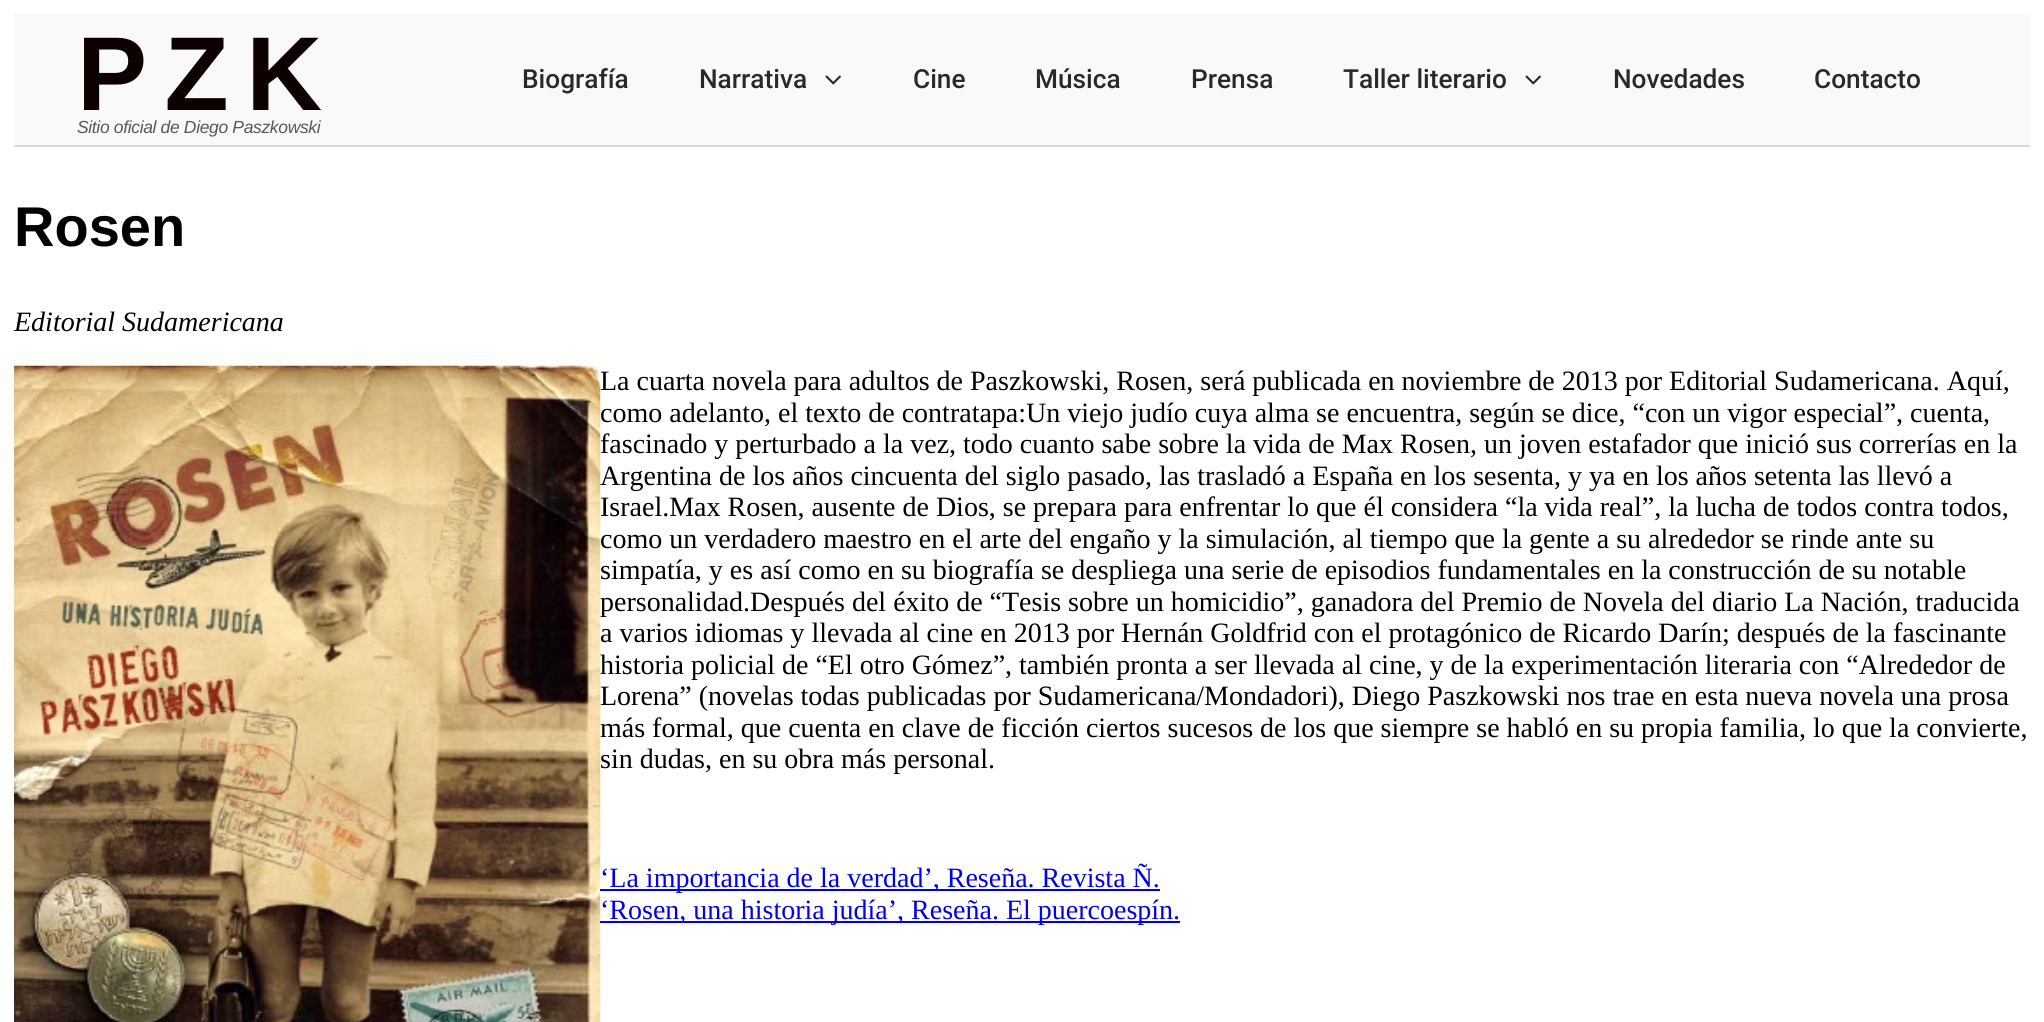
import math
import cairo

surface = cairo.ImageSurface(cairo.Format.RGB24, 2044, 1022)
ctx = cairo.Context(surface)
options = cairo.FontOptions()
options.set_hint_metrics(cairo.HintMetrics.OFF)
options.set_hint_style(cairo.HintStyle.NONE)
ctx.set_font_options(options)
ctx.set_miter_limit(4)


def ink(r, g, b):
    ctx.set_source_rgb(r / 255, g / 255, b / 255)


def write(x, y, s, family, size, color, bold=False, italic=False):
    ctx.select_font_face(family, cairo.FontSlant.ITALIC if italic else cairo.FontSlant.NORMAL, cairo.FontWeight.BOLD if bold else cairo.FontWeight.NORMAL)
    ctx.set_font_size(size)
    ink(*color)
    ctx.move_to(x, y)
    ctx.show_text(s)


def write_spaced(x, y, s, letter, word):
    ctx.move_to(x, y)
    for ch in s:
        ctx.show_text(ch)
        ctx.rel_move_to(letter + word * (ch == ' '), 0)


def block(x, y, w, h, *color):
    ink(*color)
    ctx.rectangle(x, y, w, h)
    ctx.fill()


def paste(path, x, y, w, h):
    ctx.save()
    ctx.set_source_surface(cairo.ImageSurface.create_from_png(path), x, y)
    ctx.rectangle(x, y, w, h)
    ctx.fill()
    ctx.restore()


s1 = dict(family="Roboto Medium", size=26.25, color=(38, 42, 43))
s2 = dict(family="Liberation Sans", size=56, color=(0, 0, 0), bold=True)
s3 = dict(family="Liberation Serif", size=28, color=(0, 0, 0), italic=True)
s4 = dict(family="Liberation Serif", size=28, color=(0, 0, 0))
s5 = dict(family="Liberation Serif", size=28, color=(0, 0, 238))

ink(255, 255, 255)
ctx.paint()
block(14, 14, 2016, 131, 249, 249, 249)
block(14, 145, 2016, 2, 216, 216, 216)
ctx.select_font_face("Liberation Sans", cairo.FontSlant.NORMAL, cairo.FontWeight.BOLD)
ctx.set_font_size(105)
ink(12, 0, 0)
write_spaced(77, 110, "PZK", 17.5, 0)
ctx.select_font_face("Liberation Sans", cairo.FontSlant.ITALIC)
ctx.set_font_size(17.5)
ink(84, 89, 95)
write_spaced(77, 133, "Sitio oficial de Diego Paszkowski", -0.35, 0)
write(522, 88, "Biografía", **s1)
write(699, 88, "Narrativa", **s1)
paste("pic1.png", 825, 75, 16, 10)
write(913, 88, "Cine", **s1)
write(1035, 88, "Música", **s1)
write(1191, 88, "Prensa", **s1)
write(1343, 88, "Taller literario", **s1)
paste("pic1.png", 1525, 75, 16, 10)
write(1613, 88, "Novedades", **s1)
write(1814, 88, "Contacto", **s1)
write(14, 246, "Rosen", **s2)
write(14, 331, "Editorial Sudamericana", **s3)
paste("pic2.png", 14, 365, 587, 657)
write(600, 390, "La cuarta novela para adultos de Paszkowski, Rosen, será publicada en noviembre de 2013 por Editorial Sudamericana. Aquí,", **s4)
write(600, 422, "como adelanto, el texto de contratapa:Un viejo judío cuya alma se encuentra, según se dice, “con un vigor especial”, cuenta,", **s4)
write(600, 453, "fascinado y perturbado a la vez, todo cuanto sabe sobre la vida de Max Rosen, un joven estafador que inició sus correrías en la", **s4)
write(600, 485, "Argentina de los años cincuenta del siglo pasado, las trasladó a España en los sesenta, y ya en los años setenta las llevó a", **s4)
write(600, 516, "Israel.Max Rosen, ausente de Dios, se prepara para enfrentar lo que él considera “la vida real”, la lucha de todos contra todos,", **s4)
write(600, 548, "como un verdadero maestro en el arte del engaño y la simulación, al tiempo que la gente a su alrededor se rinde ante su", **s4)
write(600, 579, "simpatía, y es así como en su biografía se despliega una serie de episodios fundamentales en la construcción de su notable", **s4)
write(600, 611, "personalidad.Después del éxito de “Tesis sobre un homicidio”, ganadora del Premio de Novela del diario La Nación, traducida", **s4)
write(600, 642, "a varios idiomas y llevada al cine en 2013 por Hernán Goldfrid con el protagónico de Ricardo Darín; después de la fascinante", **s4)
write(600, 674, "historia policial de “El otro Gómez”, también pronta a ser llevada al cine, y de la experimentación literaria con “Alrededor de", **s4)
write(600, 705, "Lorena” (novelas todas publicadas por Sudamericana/Mondadori), Diego Paszkowski nos trae en esta nueva novela una prosa", **s4)
write(600, 737, "más formal, que cuenta en clave de ficción ciertos sucesos de los que siempre se habló en su propia familia, lo que la convierte,", **s4)
write(600, 768, "sin dudas, en su obra más personal.", **s4)
block(600, 889, 560, 2, 0, 0, 238)
write(600, 887, "‘La importancia de la verdad’, Reseña. Revista Ñ.", **s5)
block(600, 921, 580, 2, 0, 0, 238)
write(600, 919, "‘Rosen, una historia judía’, Reseña. El puercoespín.", **s5)
surface.write_to_png("screenshot.png")
